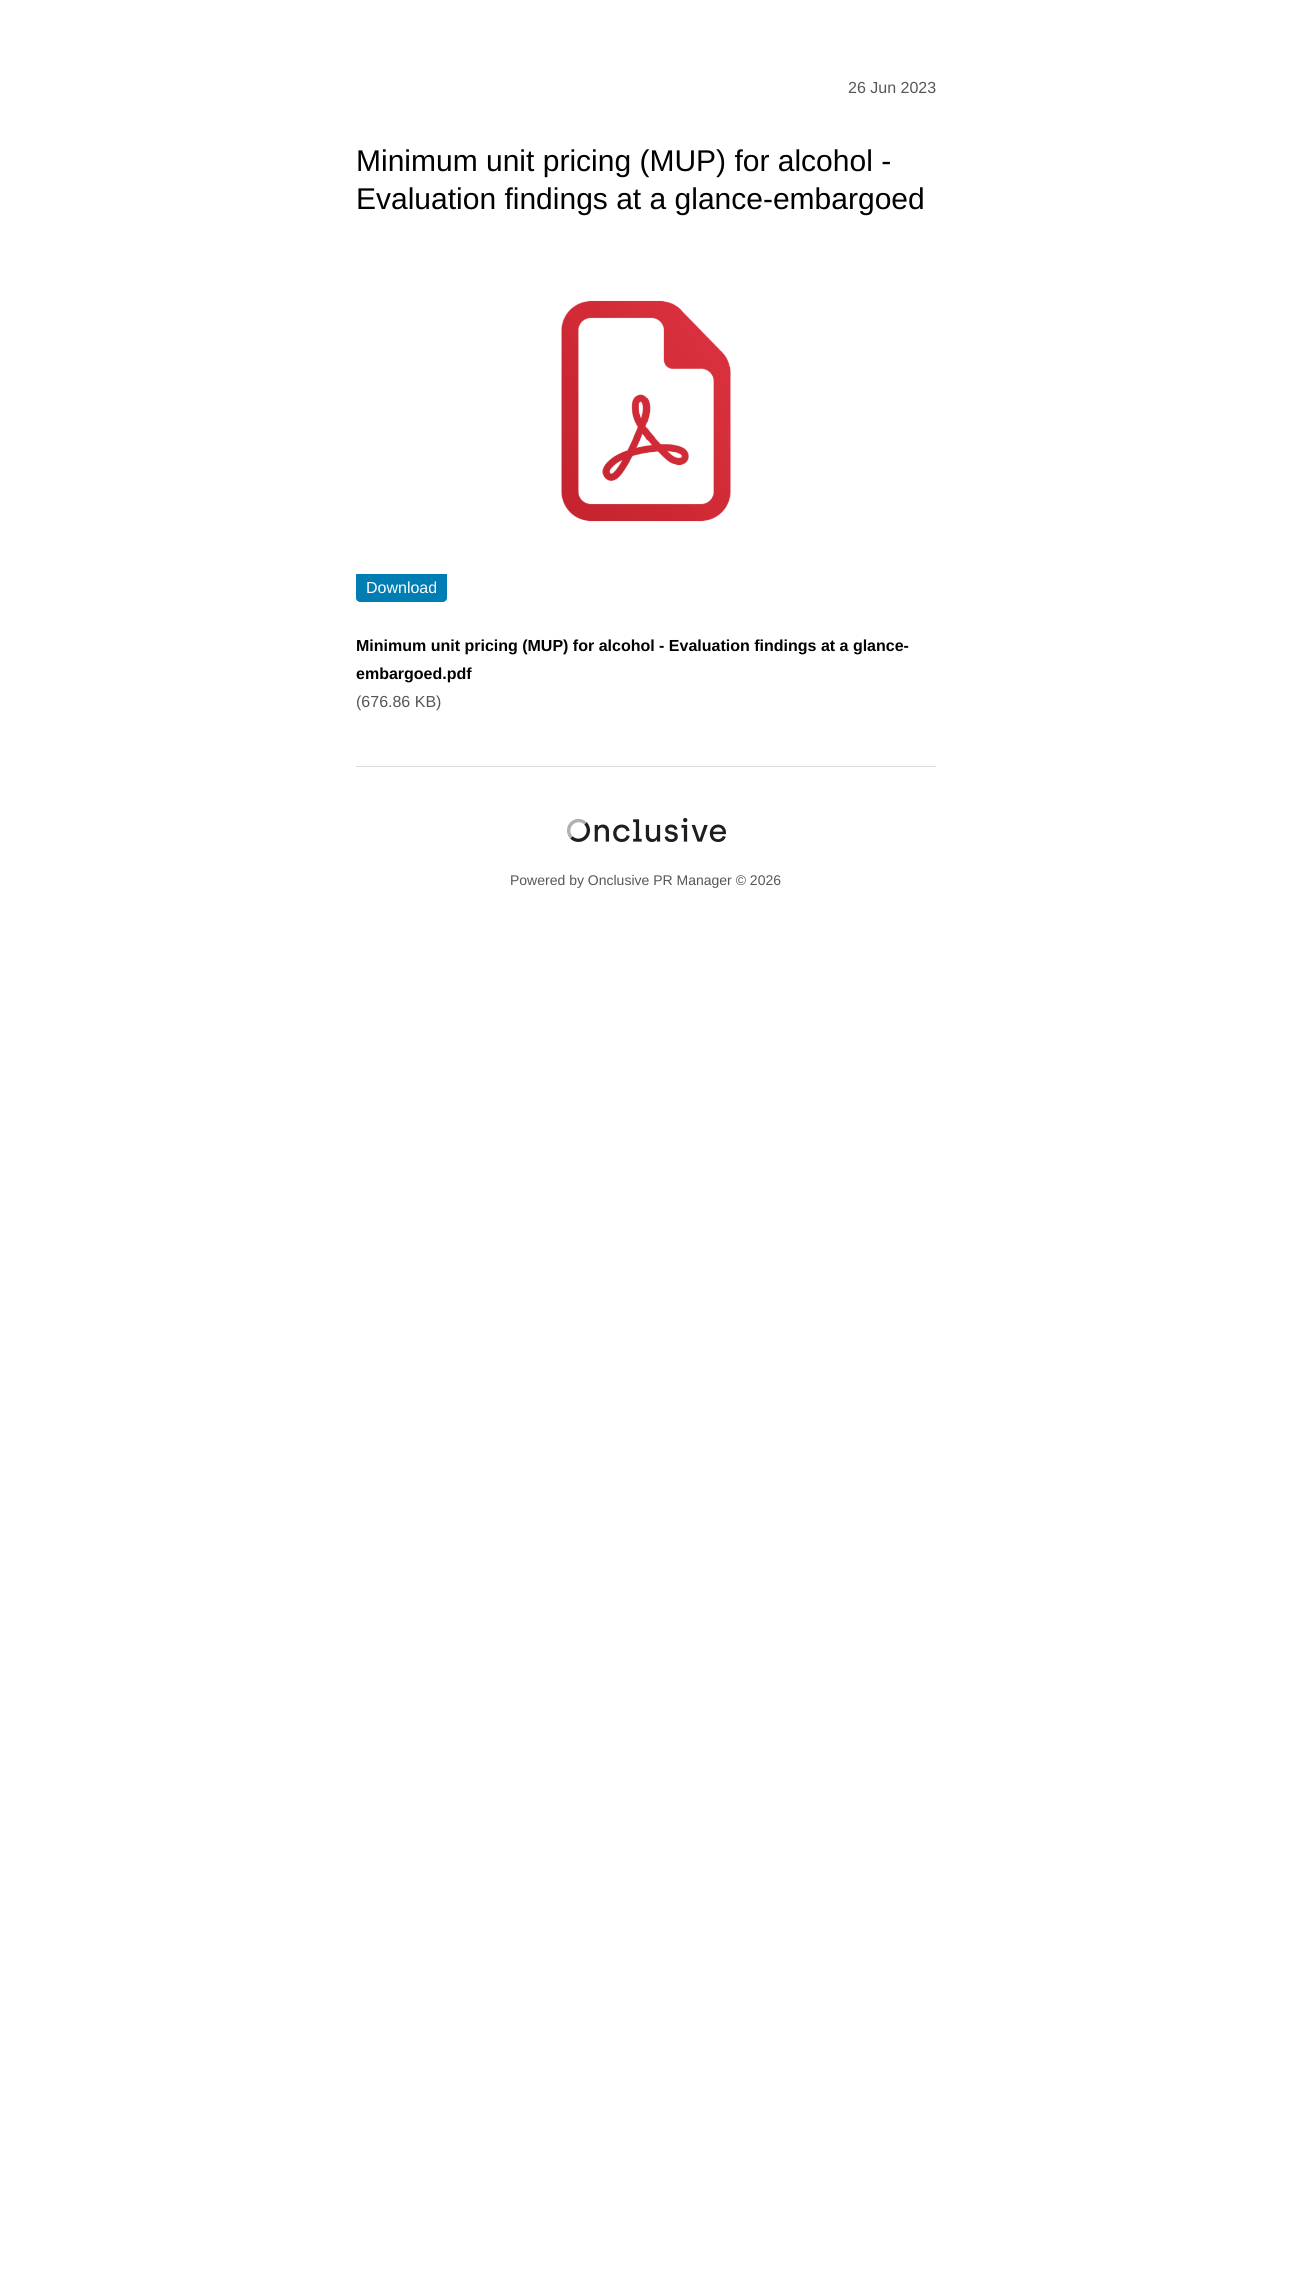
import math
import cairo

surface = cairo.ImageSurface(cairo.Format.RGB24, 1292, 2283)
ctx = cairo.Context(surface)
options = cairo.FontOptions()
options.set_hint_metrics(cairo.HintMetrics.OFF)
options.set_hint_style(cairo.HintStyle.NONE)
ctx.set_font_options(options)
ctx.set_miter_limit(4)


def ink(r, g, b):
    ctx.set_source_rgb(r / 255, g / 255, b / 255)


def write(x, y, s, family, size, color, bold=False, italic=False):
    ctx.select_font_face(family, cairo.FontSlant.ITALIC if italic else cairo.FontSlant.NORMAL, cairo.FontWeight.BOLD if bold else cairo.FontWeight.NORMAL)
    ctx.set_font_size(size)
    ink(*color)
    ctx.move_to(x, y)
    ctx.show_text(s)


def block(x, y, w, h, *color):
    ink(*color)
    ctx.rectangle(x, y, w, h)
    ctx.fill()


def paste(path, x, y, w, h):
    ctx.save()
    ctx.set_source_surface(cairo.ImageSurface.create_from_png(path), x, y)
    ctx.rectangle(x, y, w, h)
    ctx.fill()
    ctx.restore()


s1 = dict(family="Liberation Sans", size=16, color=(86, 86, 86))
s2 = dict(family="Liberation Sans", size=30, color=(1, 1, 1))
s3 = dict(family="Liberation Sans", size=16, color=(255, 255, 255))
s4 = dict(family="Liberation Sans", size=16, color=(1, 1, 1), bold=True)
s5 = dict(family="Liberation Sans", size=14, color=(86, 86, 86))

ink(255, 255, 255)
ctx.paint()
write(848, 93, "26 Jun 2023", **s1)
write(356, 171, "Minimum unit pricing (MUP) for alcohol -", **s2)
write(356, 209, "Evaluation findings at a glance-embargoed", **s2)
paste("pic1.png", 561, 300, 170, 222)
ink(0, 125, 179)
ctx.new_path()
ctx.move_to(356, 574)
ctx.line_to(447, 574)
ctx.line_to(447, 598)
ctx.curve_to(447, 600, 445, 602, 443, 602)
ctx.line_to(360, 602)
ctx.curve_to(358, 602, 356, 600, 356, 598)
ctx.close_path()
ctx.fill()
write(366, 593, "Download", **s3)
write(356, 651, "Minimum unit pricing (MUP) for alcohol - Evaluation findings at a glance-", **s4)
write(356, 679, "embargoed.pdf", **s4)
write(356, 707, "(676.86 KB)", **s1)
block(356, 766, 580, 1, 221, 221, 221)
paste("pic2.png", 567, 818, 159, 24)
write(510, 885, "Powered by Onclusive PR Manager © 2026", **s5)
surface.write_to_png("screenshot.png")
